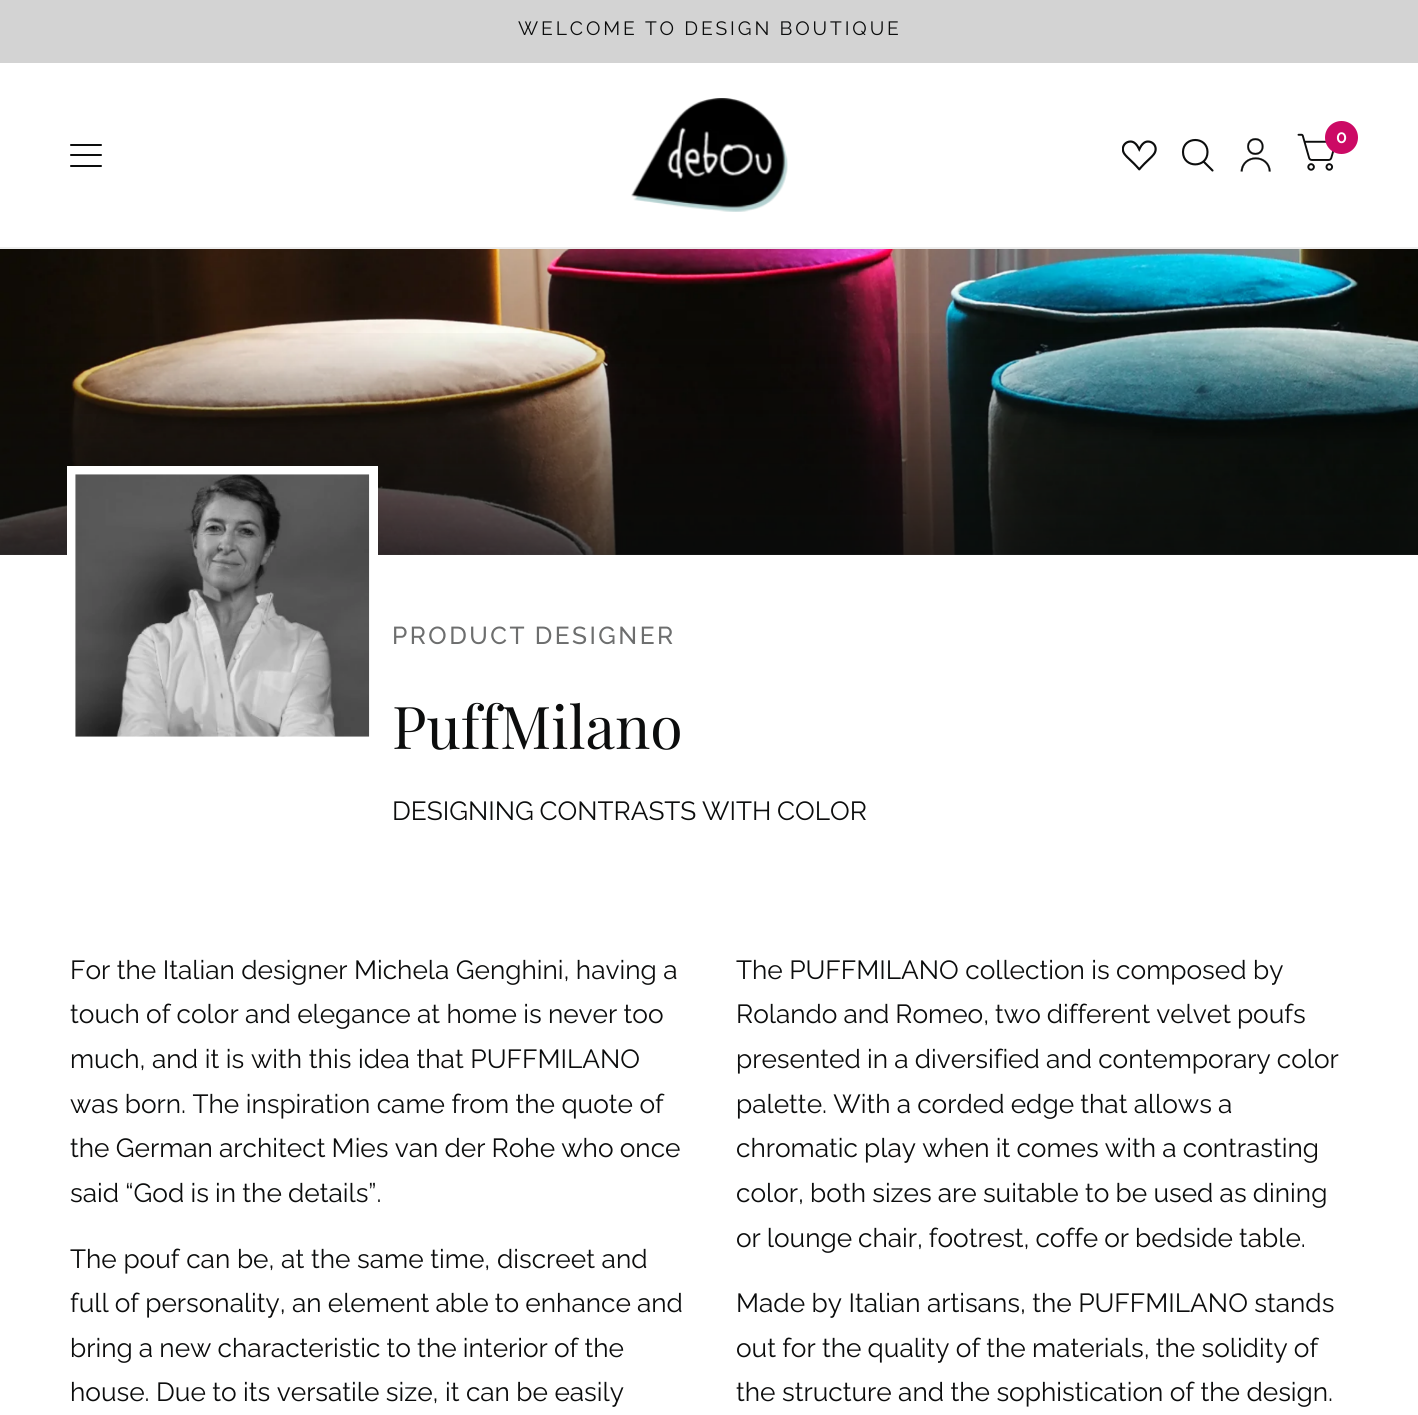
import math
import cairo

surface = cairo.ImageSurface(cairo.Format.RGB24, 1418, 1415)
ctx = cairo.Context(surface)
options = cairo.FontOptions()
options.set_hint_metrics(cairo.HintMetrics.OFF)
options.set_hint_style(cairo.HintStyle.NONE)
ctx.set_font_options(options)
ctx.set_miter_limit(4)


def ink(r, g, b):
    ctx.set_source_rgb(r / 255, g / 255, b / 255)


def write(x, y, s, family, size, color, bold=False, italic=False):
    ctx.select_font_face(family, cairo.FontSlant.ITALIC if italic else cairo.FontSlant.NORMAL, cairo.FontWeight.BOLD if bold else cairo.FontWeight.NORMAL)
    ctx.set_font_size(size)
    ink(*color)
    ctx.move_to(x, y)
    ctx.show_text(s)


def write_spaced(x, y, s, letter, word):
    ctx.move_to(x, y)
    for ch in s:
        ctx.show_text(ch)
        ctx.rel_move_to(letter + word * (ch == ' '), 0)


def block(x, y, w, h, *color):
    ink(*color)
    ctx.rectangle(x, y, w, h)
    ctx.fill()


def round_path(x, y, w, h, r):
    ctx.new_sub_path()
    for i, (u, v) in enumerate([(x + w - r, y + h - r), (x + r, y + h - r), (x + r, y + r), (x + w - r, y + r)]):
        ctx.arc(u, v, r, i * math.pi / 2, (i + 1) * math.pi / 2)
    ctx.close_path()


def paste(path, x, y, w, h):
    ctx.save()
    ctx.set_source_surface(cairo.ImageSurface.create_from_png(path), x, y)
    ctx.rectangle(x, y, w, h)
    ctx.fill()
    ctx.restore()


s1 = dict(family="Raleway SemiBold", size=18, color=(255, 255, 255))
s2 = dict(family="Playfair Display", size=59, color=(12, 13, 13))
s3 = dict(family="Raleway", size=26.25, color=(12, 13, 13))

ink(255, 255, 255)
ctx.paint()
block(0, 0, 1418, 63, 211, 211, 211)
ctx.select_font_face("Raleway")
ctx.set_font_size(19.25)
ink(12, 13, 13)
write_spaced(518, 35, "WELCOME TO DESIGN BOUTIQUE", 2.9, -0.5)
block(0, 247, 1418, 2, 238, 238, 238)
paste("pic1.png", 631, 98, 157, 114)
paste("pic2.png", 1122, 140, 35, 31)
ctx.new_path()
ctx.move_to(1204, 162)
ctx.line_to(1212.5, 170.5)
ctx.move_to(1207.5, 152)
ctx.curve_to(1207.5, 168.5, 1183, 168.5, 1183, 152)
ctx.curve_to(1183, 136, 1207.5, 136, 1207.5, 152)
ctx.close_path()
ink(12, 13, 13)
ctx.set_line_width(2.1)
ctx.set_line_cap(cairo.LineCap.ROUND)
ctx.set_line_join(cairo.LineJoin.ROUND)
ctx.stroke()
paste("pic3.png", 1240, 138, 31, 34)
paste("pic4.png", 1297, 133, 37, 38)
ink(204, 10, 101)
ctx.arc(1341.5, 137.5, 16.5, 0, 2 * math.pi)
ctx.fill()
write(1336, 143, "0", **s1)
ink(12, 13, 13)
round_path(70, 144, 32, 2, 1)
ctx.fill()
round_path(70, 154, 32, 2, 1)
ctx.fill()
round_path(70, 165, 32, 2, 1)
ctx.fill()
paste("pic5.png", 0, 249, 1418, 306)
gradient = cairo.LinearGradient(710, 555, 710, 326)
gradient.add_color_stop_rgba(0, 0.047, 0.051, 0.051, 0.7)
gradient.add_color_stop_rgba(1, 0.047, 0.051, 0.051, 0)
ctx.set_source(gradient)
ctx.rectangle(0, 333, 1418, 222)
ctx.fill()
ctx.rectangle(71.5, 470.5, 302, 271)
ink(255, 255, 255)
ctx.set_line_width(9)
ctx.set_line_cap(cairo.LineCap.BUTT)
ctx.set_line_join(cairo.LineJoin.MITER)
ctx.stroke()
paste("pic6.png", 75, 474, 295, 263)
ctx.select_font_face("Raleway Medium")
ctx.set_font_size(24.5)
ink(109, 110, 110)
write_spaced(392, 644, "PRODUCT DESIGNER", 2.5, -1)
write(392, 749, "PuffMilano", **s2)
ctx.select_font_face("Raleway")
ctx.set_font_size(26.25)
write_spaced(392, 820, "DESIGNING CONTRASTS WITH COLOR", 0, -1)
write_spaced(70, 979, "For the Italian designer Michela Genghini, having a", 0, -0.25)
write_spaced(70, 1023, "touch of color and elegance at home is never too", 0, -0.4)
write(70, 1068, "much, and it is with this idea that PUFFMILANO", **s3)
write_spaced(70, 1113, "was born. The inspiration came from the quote of", 0, -0.25)
write_spaced(70, 1157, "the German architect Mies van der Rohe who once", 0, -0.5)
write_spaced(70, 1202, "said “God is in the details”.", 0, -0.5)
write(70, 1268, "The pouf can be, at the same time, discreet and", **s3)
write_spaced(70, 1312, "full of personality, an element able to enhance and", 0, -0.5)
write_spaced(70, 1357, "bring a new characteristic to the interior of the", 0, -0.5)
write_spaced(70, 1401, "house. Due to its versatile size, it can be easily", 0, -0.25)
write_spaced(736, 979, "The PUFFMILANO collection is composed by", 0, -0.25)
write_spaced(736, 1023, "Rolando and Romeo, two different velvet poufs", 0, -0.75)
write_spaced(736, 1068, "presented in a diversified and contemporary color", 0, -0.5)
write_spaced(736, 1113, "palette. With a corded edge that allows a", 0, -0.5)
write_spaced(736, 1157, "chromatic play when it comes with a contrasting", 0, -0.5)
write_spaced(736, 1202, "color, both sizes are suitable to be used as dining", 0, -0.5)
write_spaced(736, 1247, "or lounge chair, footrest, coffe or bedside table.", 0, -0.75)
write_spaced(736, 1312, "Made by Italian artisans, the PUFFMILANO stands", 0, -0.25)
write_spaced(736, 1357, "out for the quality of the materials, the solidity of", 0, -0.5)
write_spaced(736, 1401, "the structure and the sophistication of the design.", 0, -0.25)
surface.write_to_png("screenshot.png")
